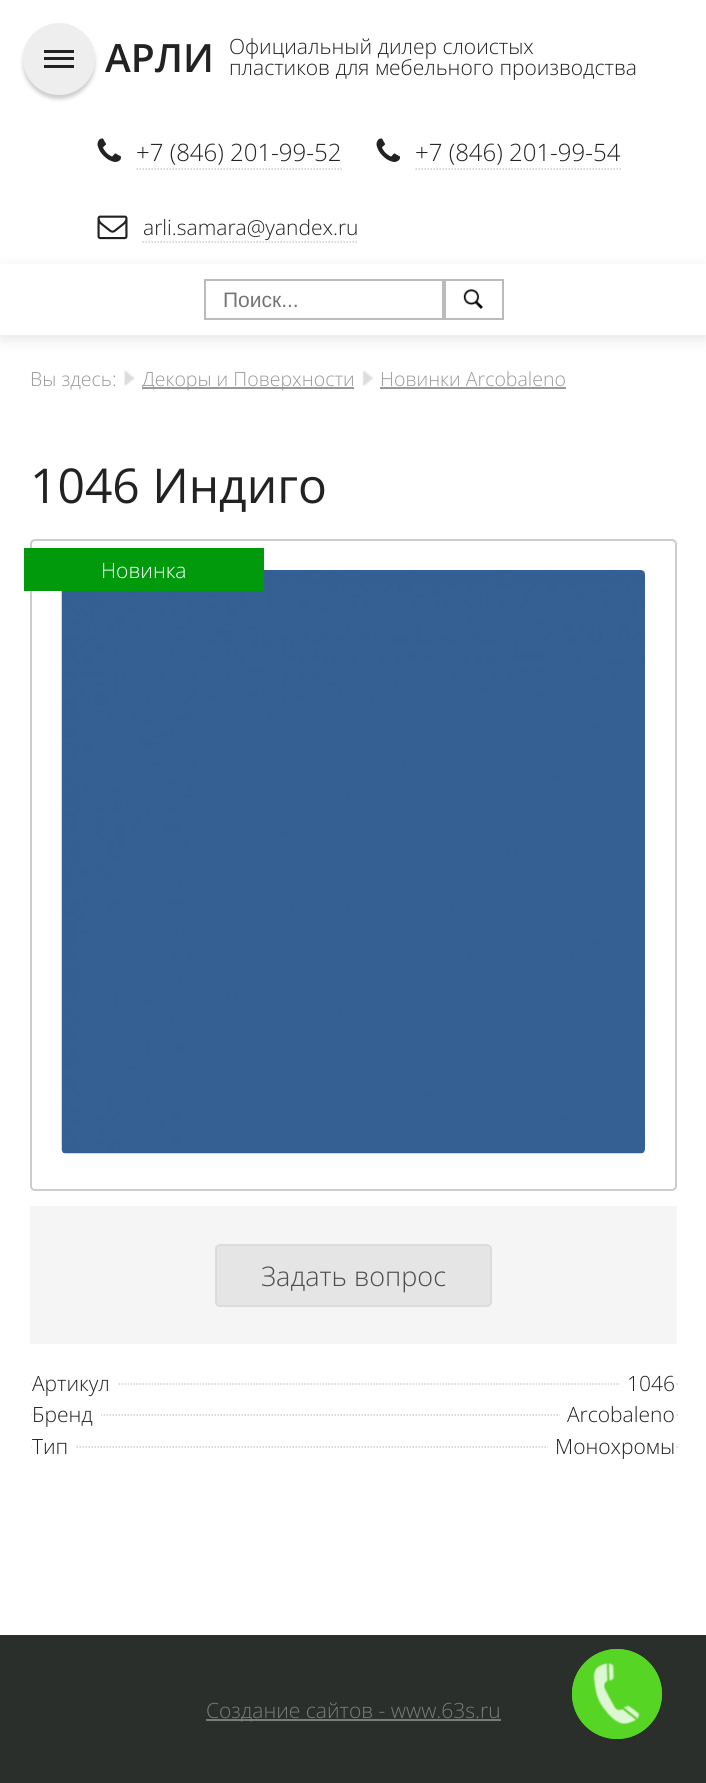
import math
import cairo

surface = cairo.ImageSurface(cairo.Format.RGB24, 706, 1783)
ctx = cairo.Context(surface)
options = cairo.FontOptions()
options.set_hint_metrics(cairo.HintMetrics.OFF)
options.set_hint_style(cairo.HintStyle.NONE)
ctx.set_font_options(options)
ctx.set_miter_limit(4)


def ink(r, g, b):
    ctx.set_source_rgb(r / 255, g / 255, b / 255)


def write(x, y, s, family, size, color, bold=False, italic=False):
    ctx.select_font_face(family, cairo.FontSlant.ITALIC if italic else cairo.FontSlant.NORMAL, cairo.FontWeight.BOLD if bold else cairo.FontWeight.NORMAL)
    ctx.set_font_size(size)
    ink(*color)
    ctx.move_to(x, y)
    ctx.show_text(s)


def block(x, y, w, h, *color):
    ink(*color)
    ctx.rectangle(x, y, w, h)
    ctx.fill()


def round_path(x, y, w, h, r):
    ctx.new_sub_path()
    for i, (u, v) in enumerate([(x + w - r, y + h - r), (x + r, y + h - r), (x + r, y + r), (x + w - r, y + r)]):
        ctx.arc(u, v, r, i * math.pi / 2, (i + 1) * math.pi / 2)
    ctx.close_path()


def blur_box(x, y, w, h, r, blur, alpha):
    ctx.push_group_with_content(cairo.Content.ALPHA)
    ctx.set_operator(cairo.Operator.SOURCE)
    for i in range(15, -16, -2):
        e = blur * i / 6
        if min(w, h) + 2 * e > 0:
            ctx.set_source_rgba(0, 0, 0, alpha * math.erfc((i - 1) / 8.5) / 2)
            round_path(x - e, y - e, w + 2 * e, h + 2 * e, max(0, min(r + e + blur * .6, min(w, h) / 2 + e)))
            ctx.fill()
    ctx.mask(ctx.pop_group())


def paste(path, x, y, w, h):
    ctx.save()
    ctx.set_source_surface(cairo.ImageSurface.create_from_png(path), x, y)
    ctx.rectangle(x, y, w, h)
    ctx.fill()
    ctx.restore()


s1 = dict(family="Open Sans SemiBold", size=39, color=(34, 34, 34))
s2 = dict(family="Open Sans Light", size=21, color=(34, 34, 34))
s3 = dict(family="Open Sans Light", size=24, color=(34, 34, 34))
s4 = dict(family="Liberation Sans", size=21, color=(117, 117, 117))
s5 = dict(family="Open Sans Light", size=19.5, color=(153, 153, 153))
s6 = dict(family="Open Sans", size=48, color=(34, 34, 34))
s7 = dict(family="Open Sans Light", size=21, color=(255, 255, 255))
s8 = dict(family="Open Sans Light", size=27, color=(77, 77, 77))
s9 = dict(family="Open Sans Light", size=21, color=(121, 124, 122))

ink(255, 255, 255)
ctx.paint()
write(105, 72, "АРЛИ", **s1)
write(229, 54, "Официальный дилер слоистых", **s2)
write(229, 75, "пластиков для мебельного производства", **s2)
paste("pic1.png", 97, 138, 24, 24)
write(136, 161, "+7 (846) 201-99-52", **s3)
ctx.new_path()
ctx.move_to(136.5, 169)
ctx.line_to(342, 169)
ink(204, 204, 204)
ctx.set_line_width(1.5)
ctx.set_dash([1.5, 1.5])
ctx.stroke()
paste("pic1.png", 376, 138, 24, 24)
write(415, 161, "+7 (846) 201-99-54", **s3)
ctx.new_path()
ctx.move_to(415.5, 169)
ctx.line_to(621, 169)
ink(204, 204, 204)
ctx.stroke()
paste("pic2.png", 97, 215, 31, 25)
write(143, 235, "arli.samara@yandex.ru", **s2)
ctx.new_path()
ctx.move_to(142.5, 242)
ctx.line_to(358.5, 242)
ink(204, 204, 204)
ctx.stroke()
block(0, 1635, 706, 148, 42, 47, 43)
ctx.arc(617, 1694, 44, 0, 2 * math.pi)
ink(86, 213, 37)
ctx.set_line_width(2)
ctx.set_dash([])
ctx.stroke()
ctx.arc(617, 1694, 45, 0, 2 * math.pi)
ctx.fill()
paste("pic3.png", 593, 1663, 47, 61)
ink(0, 0, 0)
blur_box(0, 269, 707, 70, 0, 7.5, 0.1)
block(0, 264, 706, 71, 255, 255, 255)
ink(0, 0, 0)
blur_box(23, 27, 72, 72, 36, 2, 0.2)
ink(238, 238, 238)
ctx.arc(59, 59, 36, 0, 2 * math.pi)
ctx.fill()
block(44, 57, 30, 3, 34, 34, 34)
block(44, 50, 30, 3, 34, 34, 34)
block(44, 65, 30, 3, 34, 34, 34)
ctx.rectangle(205, 280, 238, 39)
ink(187, 187, 187)
ctx.stroke()
write(223, 307, "Поиск...", **s4)
paste("pic4.png", 463, 289, 20, 20)
ctx.rectangle(445, 280, 58, 39)
ink(187, 187, 187)
ctx.stroke()
write(30, 386, "Вы здесь:", **s5)
paste("pic5.png", 124, 370, 11, 16)
block(143, 387, 211, 2, 153, 153, 153)
write(142, 386, "Декоры и Поверхности", **s5)
paste("pic6.png", 362, 370, 12, 16)
write(380, 386, "Новинки Arcobaleno", **s5)
block(380, 387, 186, 2, 153, 153, 153)
write(30, 503, "1046 Индиго", **s6)
round_path(31, 540, 645, 650, 4)
ink(204, 204, 204)
ctx.stroke()
paste("pic7.png", 61, 570, 584, 584)
block(24, 548, 240, 43, 0, 154, 12)
write(101, 578, "Новинка", **s7)
block(30, 1206, 647, 138, 245, 245, 245)
ink(229, 229, 229)
round_path(216, 1245, 275, 61, 4)
ctx.fill_preserve()
ink(220, 220, 220)
ctx.stroke()
write(261, 1286, "Задать вопрос", **s8)
ctx.new_path()
ctx.move_to(31.5, 1384)
ctx.line_to(292.5, 1384)
ink(207, 207, 207)
ctx.set_line_width(1.5)
ctx.set_dash([1.5, 1.5])
ctx.stroke()
block(32, 1383, 85, 2, 255, 255, 255)
write(32, 1391, "Артикул", **s2)
ctx.new_path()
ctx.move_to(292.5, 1384)
ctx.line_to(678, 1384)
ink(207, 207, 207)
ctx.stroke()
block(620, 1383, 55, 2, 255, 255, 255)
write(627, 1391, "1046", **s2)
ctx.new_path()
ctx.move_to(31.5, 1415)
ctx.line_to(292.5, 1415)
ink(207, 207, 207)
ctx.stroke()
block(32, 1414, 69, 2, 255, 255, 255)
write(32, 1422, "Бренд", **s2)
ctx.new_path()
ctx.move_to(292.5, 1415)
ctx.line_to(678, 1415)
ink(207, 207, 207)
ctx.stroke()
block(560, 1414, 115, 2, 255, 255, 255)
write(567, 1422, "Arcobaleno", **s2)
ctx.new_path()
ctx.move_to(31.5, 1447)
ctx.line_to(292.5, 1447)
ink(207, 207, 207)
ctx.stroke()
block(32, 1446, 43, 2, 255, 255, 255)
write(32, 1454, "Тип", **s2)
ctx.new_path()
ctx.move_to(292.5, 1447)
ctx.line_to(678, 1447)
ink(207, 207, 207)
ctx.stroke()
block(548, 1446, 127, 2, 255, 255, 255)
write(555, 1454, "Монохромы", **s2)
block(206, 1719, 295, 2, 121, 124, 121)
write(206, 1718, "Создание сайтов - www.63s.ru", **s9)
surface.write_to_png("screenshot.png")
